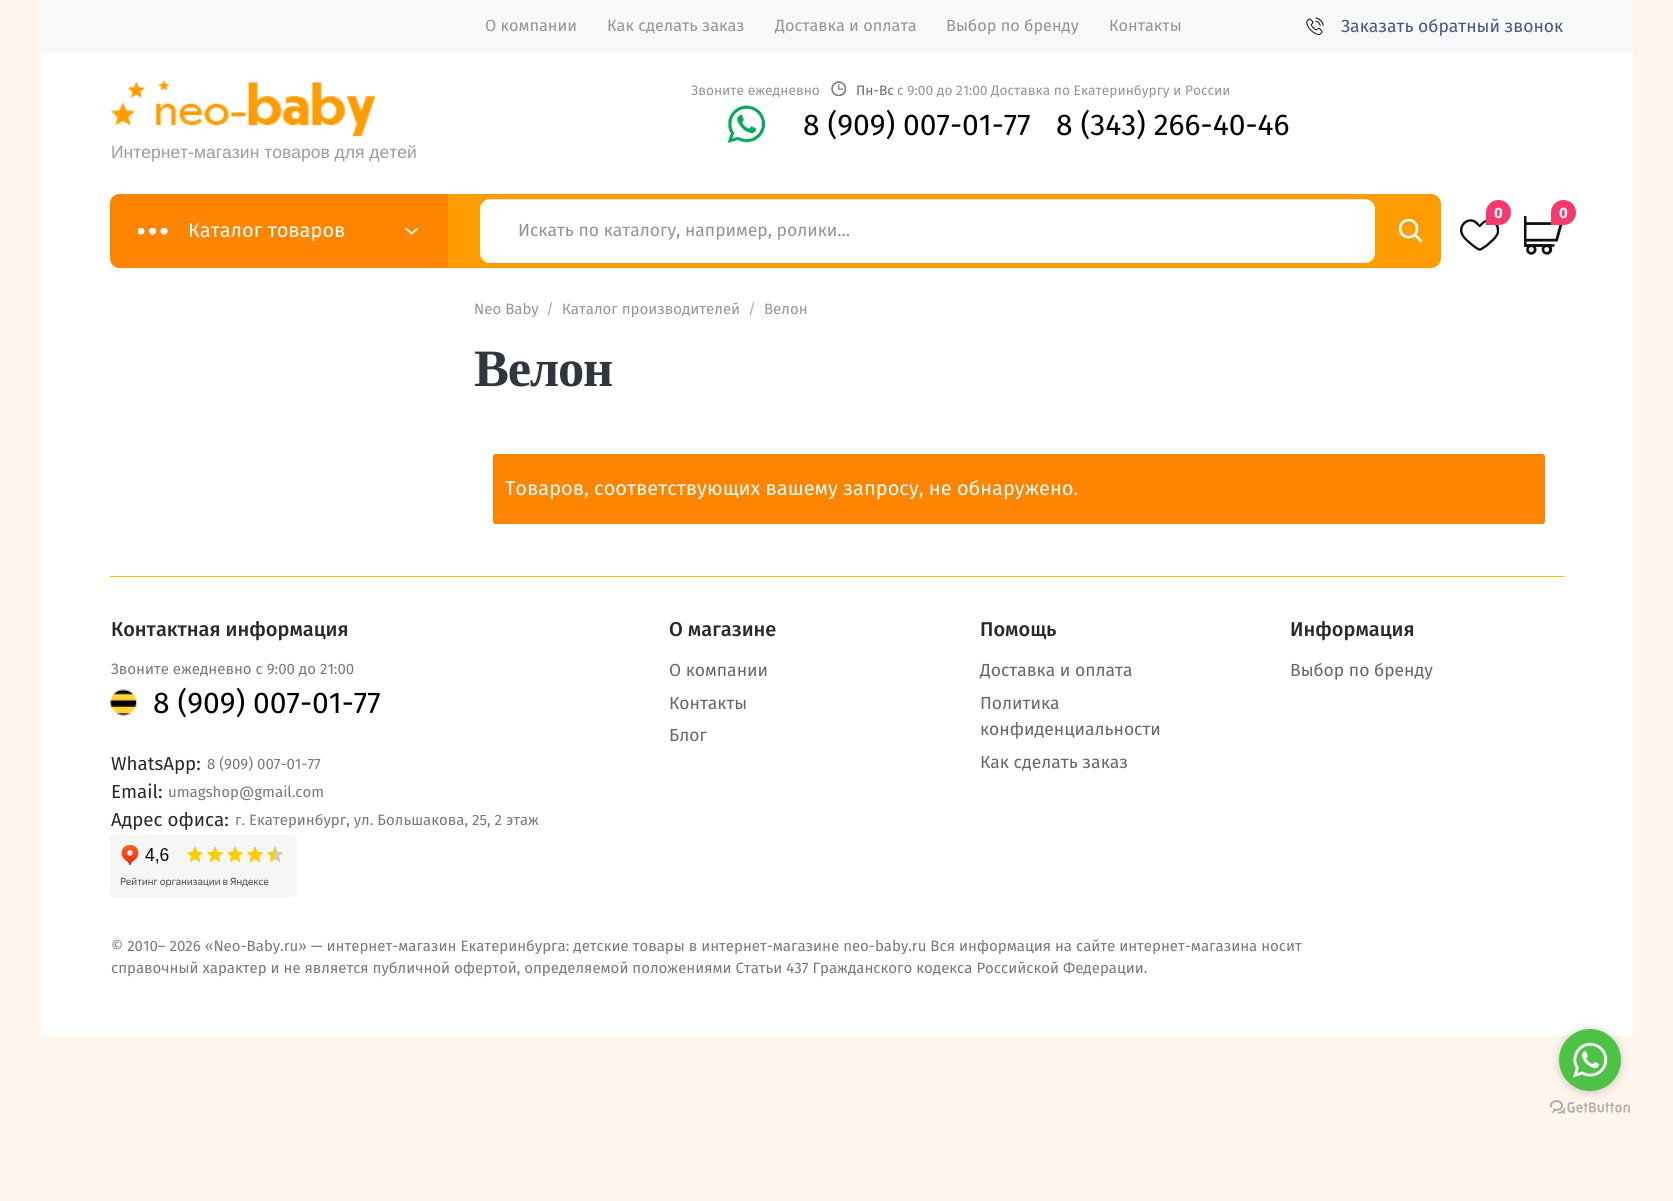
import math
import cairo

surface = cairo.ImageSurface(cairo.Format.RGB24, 1673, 1201)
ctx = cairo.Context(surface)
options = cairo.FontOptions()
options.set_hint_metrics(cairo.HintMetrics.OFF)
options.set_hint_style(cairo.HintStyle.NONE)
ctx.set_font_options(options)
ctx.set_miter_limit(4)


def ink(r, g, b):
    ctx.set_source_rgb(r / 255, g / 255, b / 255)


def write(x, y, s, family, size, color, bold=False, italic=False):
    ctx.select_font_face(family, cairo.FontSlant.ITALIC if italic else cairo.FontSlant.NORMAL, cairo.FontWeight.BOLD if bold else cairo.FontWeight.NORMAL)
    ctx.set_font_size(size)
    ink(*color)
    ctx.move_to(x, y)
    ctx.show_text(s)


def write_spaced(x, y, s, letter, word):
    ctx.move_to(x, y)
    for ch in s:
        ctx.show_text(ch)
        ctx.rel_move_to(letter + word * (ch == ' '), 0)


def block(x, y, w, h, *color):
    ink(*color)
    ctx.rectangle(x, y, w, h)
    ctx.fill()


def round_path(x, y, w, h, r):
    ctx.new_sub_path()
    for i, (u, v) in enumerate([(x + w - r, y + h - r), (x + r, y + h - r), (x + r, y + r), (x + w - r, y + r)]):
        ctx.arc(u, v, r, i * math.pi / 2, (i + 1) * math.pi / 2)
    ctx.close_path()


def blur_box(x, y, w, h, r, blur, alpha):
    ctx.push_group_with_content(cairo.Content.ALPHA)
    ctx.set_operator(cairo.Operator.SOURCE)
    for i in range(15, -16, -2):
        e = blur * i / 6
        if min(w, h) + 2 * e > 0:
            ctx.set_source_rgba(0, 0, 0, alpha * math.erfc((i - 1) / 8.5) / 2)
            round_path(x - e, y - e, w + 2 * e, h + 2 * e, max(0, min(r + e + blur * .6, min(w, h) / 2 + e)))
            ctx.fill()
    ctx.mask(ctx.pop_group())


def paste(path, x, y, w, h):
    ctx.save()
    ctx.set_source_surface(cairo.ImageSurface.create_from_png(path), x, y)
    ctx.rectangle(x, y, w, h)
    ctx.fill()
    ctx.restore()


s1 = dict(family="Fira Sans", size=16.25, color=(146, 148, 149))
s2 = dict(family="Fira Sans", size=17.5, color=(75, 85, 121))
s3 = dict(family="Fira Sans", size=13.75, color=(146, 148, 149))
s4 = dict(family="Fira Sans", size=13.75, color=(101, 104, 105))
s5 = dict(family="Fira Sans", size=30, color=(0, 0, 0))
s6 = dict(family="Liberation Sans", size=17.5, color=(156, 156, 157))
s7 = dict(family="Fira Sans", size=15, color=(255, 255, 255), bold=True)
s8 = dict(family="Fira Sans", size=20, color=(255, 255, 255))
s9 = dict(family="Fira Sans", size=17.5, color=(146, 148, 149))
s10 = dict(family="Fira Sans", size=15, color=(146, 148, 149))
s11 = dict(family="Fira Sans", size=15, color=(171, 173, 176))
s12 = dict(family="Fira Sans Medium", size=20, color=(40, 40, 41))
s13 = dict(family="Fira Sans", size=15, color=(120, 120, 122))
s14 = dict(family="Fira Sans", size=18.75, color=(40, 40, 41))
s15 = dict(family="Fira Sans", size=17.5, color=(101, 104, 105))

ink(254, 246, 237)
ctx.paint()
block(41, 0, 1592, 53, 247, 248, 250)
write(485, 31, "О компании", **s1)
write(607, 31, "Как сделать заказ", **s1)
write(775, 31, "Доставка и оплата", **s1)
write(946, 31, "Выбор по бренду", **s1)
write(1109, 31, "Контакты", **s1)
paste("pic1.png", 1306, 17, 18, 18)
write(1341, 32, "Заказать обратный звонок", **s2)
block(41, 53, 1592, 215, 255, 255, 255)
write(691, 95, "Звоните ежедневно", **s3)
paste("pic2.png", 831, 81, 15, 15)
write(856, 95, "Пн-Вс", **s4)
write(897, 95, "с 9:00 до 21:00 Доставка по Екатеринбургу и России", **s3)
paste("pic3.png", 727, 105, 39, 39)
write(803, 135, "8 (909) 007-01-77", **s5)
write(1056, 135, "8 (343) 266-40-46", **s5)
paste("pic4.png", 110, 80, 266, 57)
write(111, 158, "Интернет-магазин товаров для детей", **s6)
paste("pic5.png", 1460, 219, 39, 32)
ink(248, 57, 107)
ctx.new_path()
ctx.move_to(1498.5, 200)
ctx.curve_to(1505.5, 200, 1511, 205.5, 1511, 212.5)
ctx.curve_to(1511, 219.5, 1505.5, 225, 1498.5, 225)
ctx.line_to(1486, 225)
ctx.line_to(1486, 212.5)
ctx.curve_to(1486, 205.5, 1491.5, 200, 1498.5, 200)
ctx.close_path()
ctx.fill()
write(1494, 218, "0", **s7)
paste("pic6.png", 1524, 215, 39, 40)
ink(248, 57, 107)
ctx.new_path()
ctx.move_to(1563.5, 200)
ctx.curve_to(1570.5, 200, 1576, 205.5, 1576, 212.5)
ctx.curve_to(1576, 219.5, 1570.5, 225, 1563.5, 225)
ctx.line_to(1551, 225)
ctx.line_to(1551, 212.5)
ctx.curve_to(1551, 205.5, 1556.5, 200, 1563.5, 200)
ctx.close_path()
ctx.fill()
write(1559, 218, "0", **s7)
ink(255, 156, 0)
round_path(110, 194, 1331, 74, 10)
ctx.fill()
ink(255, 132, 0)
ctx.new_path()
ctx.move_to(120, 194)
ctx.line_to(448, 194)
ctx.line_to(448, 268)
ctx.line_to(120, 268)
ctx.curve_to(114.5, 268, 110, 263.5, 110, 258)
ctx.line_to(110, 204)
ctx.curve_to(110, 198.5, 114.5, 194, 120, 194)
ctx.close_path()
ctx.fill()
paste("pic7.png", 138, 228, 30, 7)
write(188, 237, "Каталог товаров", **s8)
paste("pic8.png", 405, 228, 14, 7)
round_path(480, 199, 895, 64, 10)
ctx.fill()
ctx.set_source_rgba(0, 0, 0, 0.12)
ctx.new_path()
ctx.move_to(490, 200)
ctx.line_to(1365, 200)
ctx.curve_to(1371, 200, 1375, 204, 1375, 210)
ctx.curve_to(1375, 204, 1371, 199, 1365, 199)
ctx.line_to(490, 199)
ctx.curve_to(484, 199, 480, 204, 480, 210)
ctx.curve_to(480, 204, 484, 200, 490, 200)
ctx.close_path()
ctx.fill()
write(518, 236, "Искать по каталогу, например, ролики...", **s9)
paste("pic9.png", 1399, 219, 24, 24)
block(41, 268, 1592, 768, 255, 255, 255)
write(474, 314, "Neo Baby", **s10)
write(546, 314, "/", **s11)
write(562, 314, "Каталог производителей", **s10)
write(748, 314, "/", **s11)
write(764, 314, "Велон", **s10)
ctx.select_font_face("Liberation Serif", cairo.FontSlant.NORMAL, cairo.FontWeight.BOLD)
ctx.set_font_size(52.5)
ink(49, 54, 62)
write_spaced(474, 386, "Велон", -1.25, 0)
ink(255, 132, 0)
round_path(493, 454, 1052, 70, 2.5)
ctx.fill()
write(505, 495, "Товаров, соответствующих вашему запросу, не обнаружено.", **s8)
block(110, 576, 1454, 1, 255, 192, 0)
write(111, 636, "Контактная информация", **s12)
write(111, 674, "Звоните ежедневно с 9:00 до 21:00", **s13)
paste("pic10.png", 110, 689, 27, 27)
write(153, 713, "8 (909) 007-01-77", **s5)
write(111, 770, "WhatsApp:", **s14)
write(207, 769, "8 (909) 007-01-77", **s13)
write(111, 798, "Email:", **s14)
write(168, 797, "umagshop@gmail.com", **s13)
write(111, 826, "Адрес офиса:", **s14)
write(235, 825, "г. Екатеринбург, ул. Большакова, 25, 2 этаж", **s13)
paste("pic11.png", 110, 835, 187, 62)
write(669, 636, "О магазине", **s12)
write(669, 676, "О компании", **s15)
write(669, 709, "Контакты", **s15)
write(669, 741, "Блог", **s15)
write(980, 636, "Помощь", **s12)
write(980, 676, "Доставка и оплата", **s15)
write(980, 709, "Политика", **s15)
write(980, 735, "конфиденциальности", **s15)
write(980, 768, "Как сделать заказ", **s15)
write(1290, 636, "Информация", **s12)
write(1290, 676, "Выбор по бренду", **s15)
write(111, 951, "© 2010– 2026 «Neo-Baby.ru» — интернет-магазин Екатеринбурга: детские товары в интернет-магазине neo-baby.ru Вся информация на сайте интернет-магазина носит", **s13)
write(111, 973, "справочный характер и не является публичной офертой, определяемой положениями Статьи 437 Гражданского кодекса Российской Федерации.", **s13)
paste("pic13.png", 1550, 1100, 80, 14)
ink(136, 136, 136)
blur_box(1559, 1030, 62, 63, 31, 4.5, 0.4)
ink(77, 194, 71)
ctx.arc(1590, 1060, 31, 0, 2 * math.pi)
ctx.fill()
paste("pic12.png", 1572, 1042, 36, 36)
surface.write_to_png("screenshot.png")
